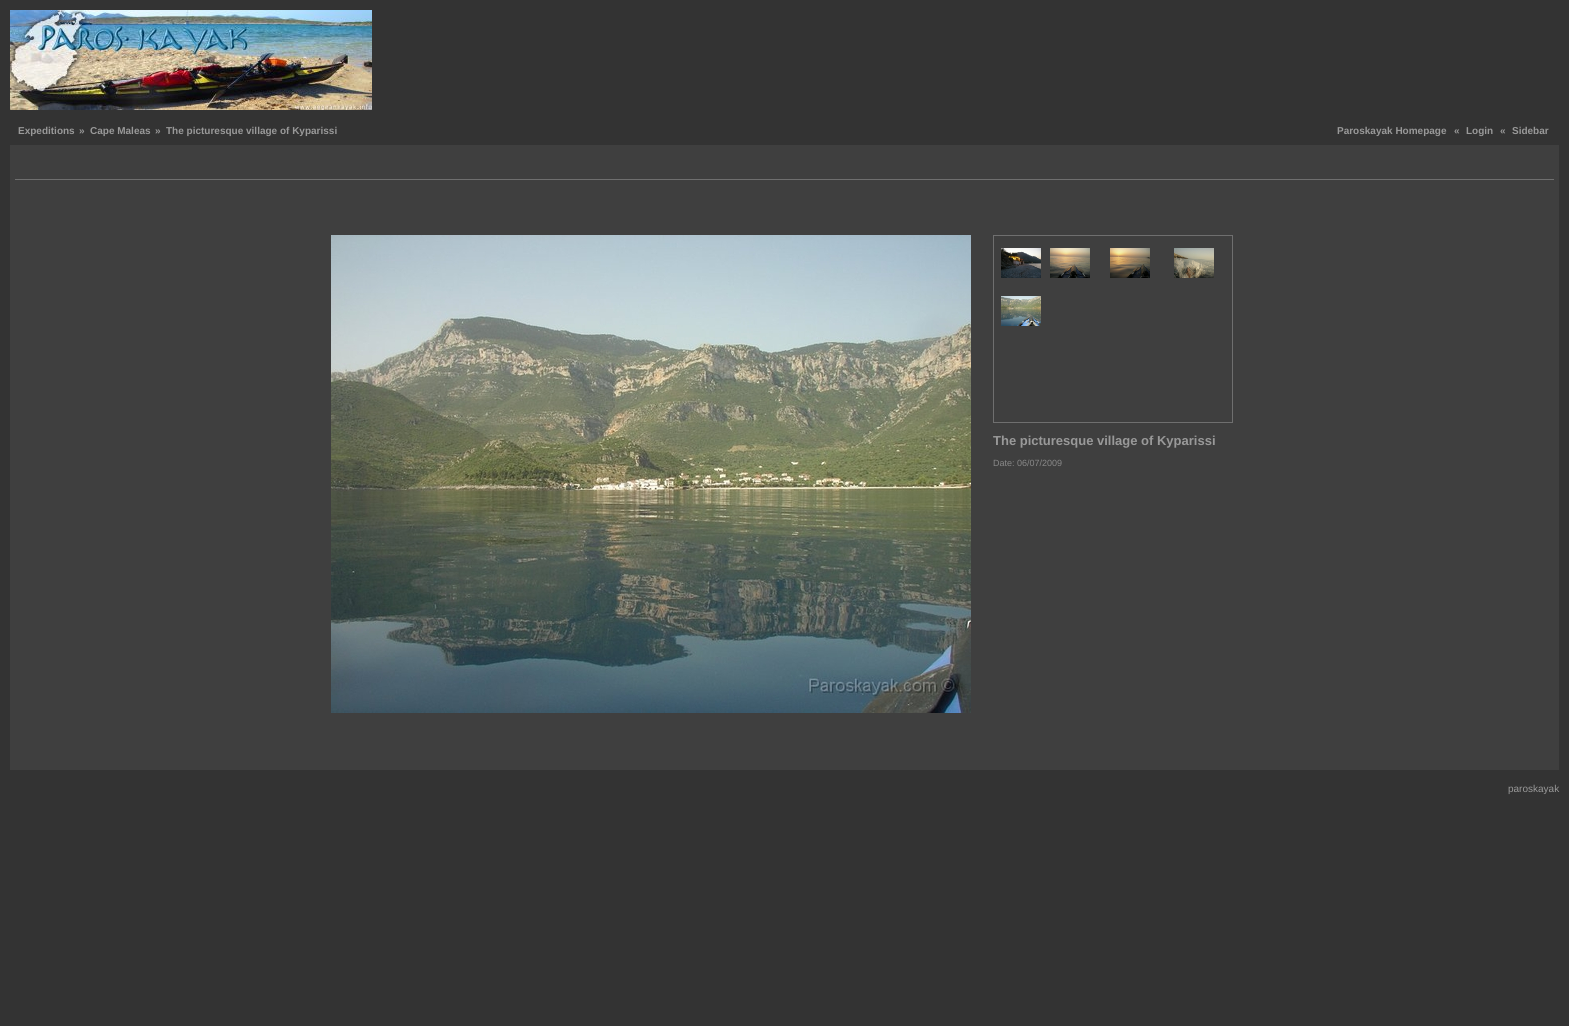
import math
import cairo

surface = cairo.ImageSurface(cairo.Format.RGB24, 1569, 1026)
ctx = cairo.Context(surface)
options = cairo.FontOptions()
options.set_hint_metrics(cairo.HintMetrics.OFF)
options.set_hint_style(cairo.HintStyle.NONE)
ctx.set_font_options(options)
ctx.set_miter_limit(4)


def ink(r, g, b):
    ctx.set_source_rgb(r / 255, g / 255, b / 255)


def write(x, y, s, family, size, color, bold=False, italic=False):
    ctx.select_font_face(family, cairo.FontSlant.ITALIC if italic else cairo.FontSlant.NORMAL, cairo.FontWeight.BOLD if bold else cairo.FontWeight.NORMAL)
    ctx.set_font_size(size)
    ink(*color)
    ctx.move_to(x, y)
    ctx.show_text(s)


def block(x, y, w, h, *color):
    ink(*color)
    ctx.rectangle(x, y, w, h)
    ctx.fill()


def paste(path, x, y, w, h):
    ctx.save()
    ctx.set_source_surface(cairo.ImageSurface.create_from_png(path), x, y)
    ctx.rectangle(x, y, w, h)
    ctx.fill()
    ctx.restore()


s1 = dict(family="Liberation Sans", size=10, color=(153, 153, 153), bold=True)
s2 = dict(family="Liberation Sans", size=13, color=(153, 153, 153), bold=True)
s3 = dict(family="Liberation Sans", size=9, color=(136, 136, 136))
s4 = dict(family="Liberation Sans", size=10, color=(153, 153, 153))

ink(51, 51, 51)
ctx.paint()
paste("pic1.png", 10, 10, 362, 100)
write(18, 134, "Expeditions", **s1)
write(79, 134, "»", **s1)
write(90, 134, "Cape Maleas", **s1)
write(155, 134, "»", **s1)
write(166, 134, "The picturesque village of Kyparissi", **s1)
write(1337, 134, "Paroskayak Homepage", **s1)
write(1454, 134, "«", **s1)
write(1466, 134, "Login", **s1)
write(1500, 134, "«", **s1)
write(1512, 134, "Sidebar", **s1)
block(10, 145, 1549, 625, 63, 63, 63)
block(15, 179, 1539, 1, 111, 111, 111)
paste("pic2.png", 331, 235, 640, 478)
ctx.rectangle(993.5, 235.5, 239, 187)
ctx.set_line_width(1)
ctx.stroke()
paste("pic3.png", 1001, 248, 40, 30)
paste("pic4.png", 1050, 248, 40, 30)
paste("pic5.png", 1110, 248, 40, 30)
paste("pic6.png", 1174, 248, 40, 30)
paste("pic7.png", 1001, 296, 40, 30)
write(993, 445, "The picturesque village of Kyparissi", **s2)
write(993, 466, "Date: 06/07/2009", **s3)
write(1508, 792, "paroskayak", **s4)
surface.write_to_png("screenshot.png")
